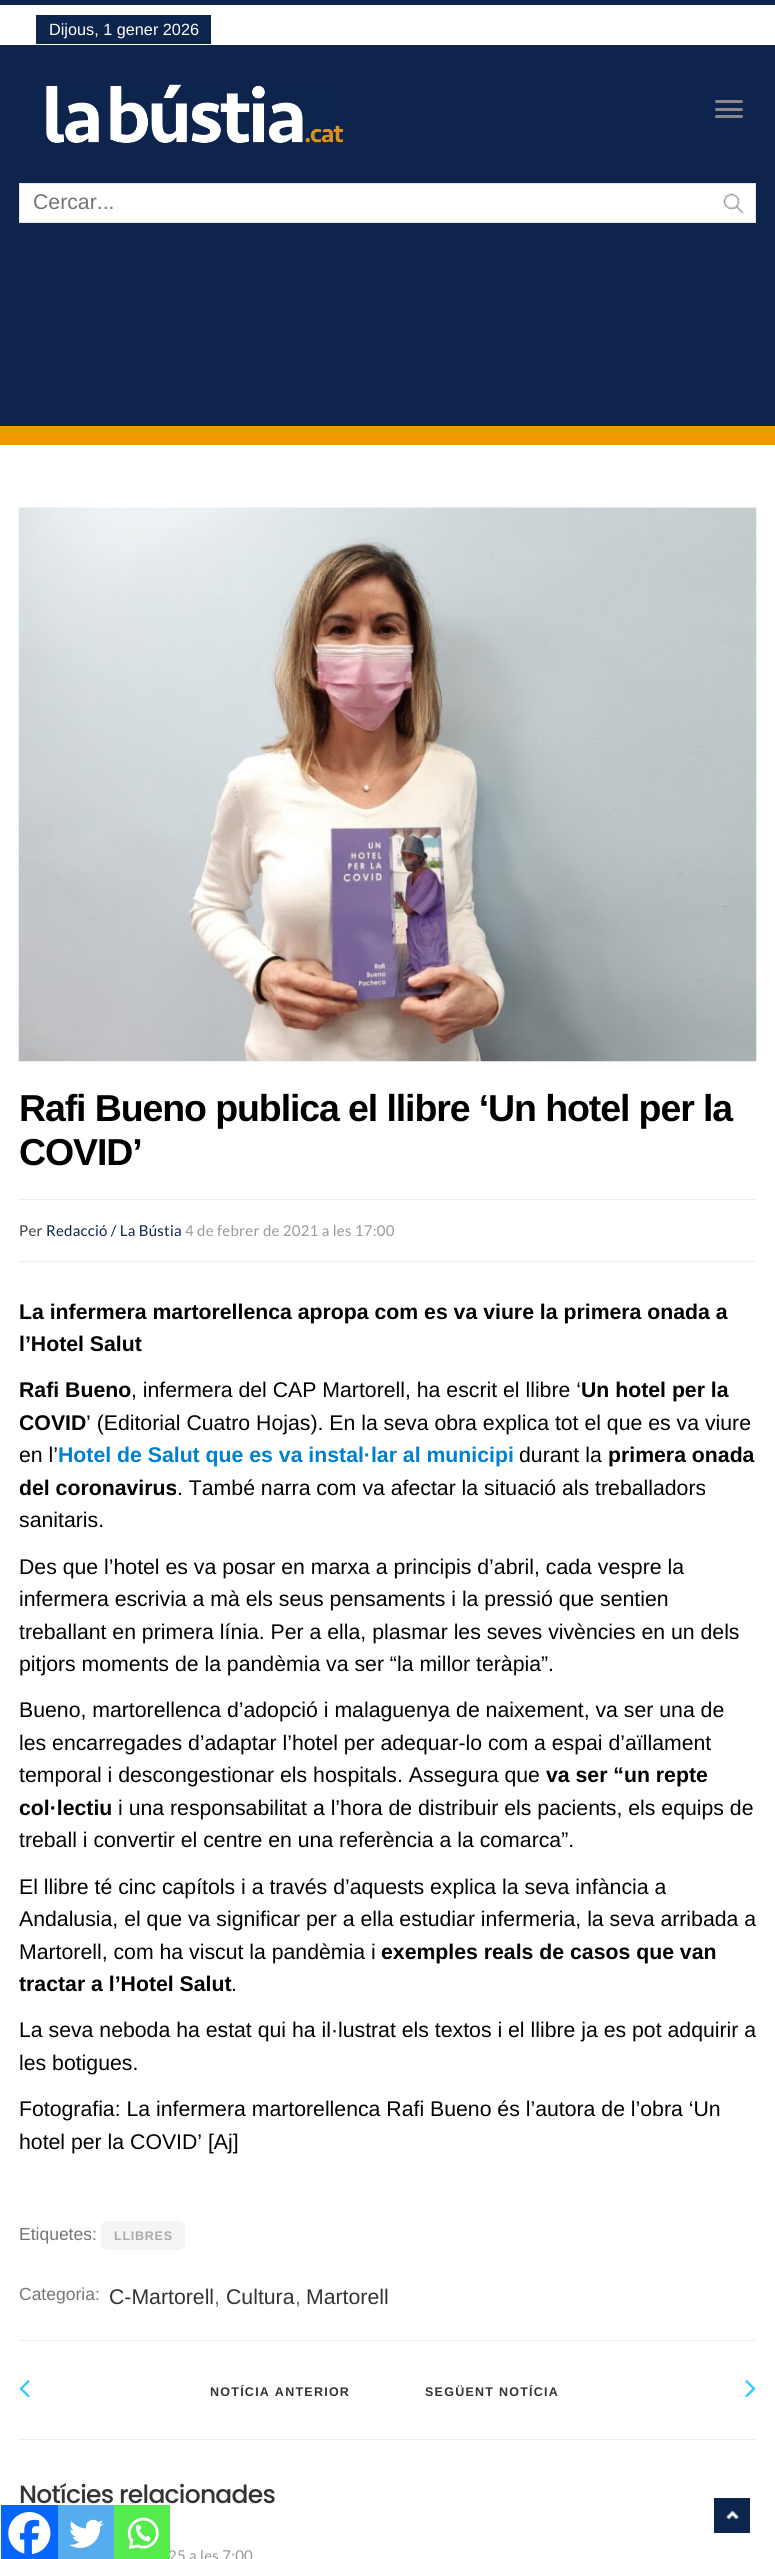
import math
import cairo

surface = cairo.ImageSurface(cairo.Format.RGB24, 775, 2559)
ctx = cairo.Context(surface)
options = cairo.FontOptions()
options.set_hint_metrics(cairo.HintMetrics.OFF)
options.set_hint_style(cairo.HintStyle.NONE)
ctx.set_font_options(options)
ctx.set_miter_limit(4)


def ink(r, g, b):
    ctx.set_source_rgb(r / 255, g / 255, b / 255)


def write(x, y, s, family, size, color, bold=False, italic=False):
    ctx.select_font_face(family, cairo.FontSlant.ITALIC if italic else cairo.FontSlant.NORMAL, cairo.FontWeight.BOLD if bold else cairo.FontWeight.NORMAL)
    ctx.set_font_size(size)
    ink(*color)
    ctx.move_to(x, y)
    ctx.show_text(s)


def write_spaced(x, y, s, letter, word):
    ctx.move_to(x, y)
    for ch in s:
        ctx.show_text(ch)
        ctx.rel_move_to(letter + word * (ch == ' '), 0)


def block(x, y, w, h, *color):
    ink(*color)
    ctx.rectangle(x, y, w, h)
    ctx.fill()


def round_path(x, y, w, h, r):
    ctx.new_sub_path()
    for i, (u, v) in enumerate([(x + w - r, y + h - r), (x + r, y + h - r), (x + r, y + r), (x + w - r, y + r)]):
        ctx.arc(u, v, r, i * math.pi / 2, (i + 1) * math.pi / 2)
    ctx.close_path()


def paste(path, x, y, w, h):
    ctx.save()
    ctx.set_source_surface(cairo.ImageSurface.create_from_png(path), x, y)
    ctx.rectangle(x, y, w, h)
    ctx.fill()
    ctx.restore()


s1 = dict(family="Liberation Sans", size=16.25, color=(255, 255, 255))
s2 = dict(family="Liberation Sans", size=21.25, color=(117, 117, 117))
s3 = dict(family="Liberation Sans", size=21.25, color=(0, 0, 0), bold=True)
s4 = dict(family="Liberation Sans", size=21.25, color=(0, 0, 0))
s5 = dict(family="Liberation Sans", size=21.25, color=(0, 128, 206), bold=True)
s6 = dict(family="Liberation Sans", size=17.5, color=(117, 117, 117))
s7 = dict(family="Liberation Sans", size=21.25, color=(51, 51, 51))

ink(255, 255, 255)
ctx.paint()
block(0, 0, 775, 5, 13, 36, 77)
block(36, 15, 175, 29, 13, 36, 77)
write(49, 35, "Dijous, 1 gener 2026", **s1)
block(0, 45, 775, 381, 14, 36, 77)
block(0, 426, 775, 19, 241, 151, 0)
paste("pic1.png", 46, 84, 297, 59)
ink(136, 136, 136)
round_path(715, 100, 28, 3, 1.5)
ctx.fill()
round_path(715, 108, 28, 3, 1.5)
ctx.fill()
round_path(715, 115, 28, 3, 1.5)
ctx.fill()
ink(255, 255, 255)
ctx.rectangle(19.5, 183.5, 736, 39)
ctx.fill_preserve()
ink(229, 229, 229)
ctx.set_line_width(1)
ctx.stroke()
write(33, 209, "Cercar...", **s2)
paste("pic2.png", 723, 193, 21, 21)
paste("pic3.png", 18, 507, 739, 555)
ctx.select_font_face("Liberation Sans", cairo.FontSlant.NORMAL, cairo.FontWeight.BOLD)
ctx.set_font_size(37.5)
ink(0, 0, 0)
write_spaced(19, 1121, "Rafi Bueno publica el llibre ‘Un hotel per la", -1.1, 0)
write_spaced(19, 1165, "COVID’", -1.1, 0)
block(19, 1199, 737, 1, 238, 238, 238)
block(19, 1261, 737, 1, 238, 238, 238)
ctx.select_font_face("Lato")
ctx.set_font_size(15)
ink(68, 68, 68)
write_spaced(19, 1236, "Per", 0.25, 0)
ink(13, 36, 77)
write_spaced(46, 1236, "Redacció / La Bústia", 0.25, 0)
ink(153, 153, 153)
write_spaced(185, 1236, "4 de febrer de 2021 a les 17:00", 0.25, 0)
write(19, 1319, "La infermera martorellenca apropa com es va viure la primera onada a", **s3)
write(19, 1351, "l’Hotel Salut", **s3)
write(19, 1397, "Rafi Bueno", **s3)
write(131, 1397, ", infermera del CAP Martorell, ha escrit el llibre ‘", **s4)
write(581, 1397, "Un hotel per la", **s3)
write(19, 1430, "COVID", **s3)
write(86, 1430, "’ (Editorial Cuatro Hojas). En la seva obra explica tot el que es va viure", **s4)
write(19, 1462, "en l’", **s4)
write(58, 1462, "Hotel de Salut que es va instal·lar al municipi", **s5)
write(519, 1462, "durant la", **s4)
write(608, 1462, "primera onada", **s3)
write(19, 1495, "del coronavirus", **s3)
write(177, 1495, ". També narra com va afectar la situació als treballadors", **s4)
write(19, 1527, "sanitaris.", **s4)
write(19, 1574, "Des que l’hotel es va posar en marxa a principis d’abril, cada vespre la", **s4)
write(19, 1606, "infermera escrivia a mà els seus pensaments i la pressió que sentien", **s4)
write(19, 1639, "treballant en primera línia. Per a ella, plasmar les seves vivències en un dels", **s4)
write(19, 1671, "pitjors moments de la pandèmia va ser “la millor teràpia”.", **s4)
write(19, 1717, "Bueno, martorellenca d’adopció i malaguenya de naixement, va ser una de", **s4)
write(19, 1750, "les encarregades d’adaptar l’hotel per adequar-lo com a espai d’aïllament", **s4)
write(19, 1782, "temporal i descongestionar els hospitals. Assegura que", **s4)
write(546, 1782, "va ser “un repte", **s3)
write(19, 1815, "col·lectiu", **s3)
write(118, 1815, "i una responsabilitat a l’hora de distribuir els pacients, els equips de", **s4)
write(19, 1847, "treball i convertir el centre en una referència a la comarca”.", **s4)
write(19, 1894, "El llibre té cinc capítols i a través d’aquests explica la seva infància a", **s4)
write(19, 1926, "Andalusia, el que va significar per a ella estudiar infermeria, la seva arribada a", **s4)
write(19, 1959, "Martorell, com ha viscut la pandèmia i", **s4)
write(381, 1959, "exemples reals de casos que van", **s3)
write(19, 1991, "tractar a l’Hotel Salut", **s3)
write(231, 1991, ".", **s4)
write(19, 2037, "La seva neboda ha estat qui ha il·lustrat els textos i el llibre ja es pot adquirir a", **s4)
write(19, 2070, "les botigues.", **s4)
write(19, 2116, "Fotografia: La infermera martorellenca Rafi Bueno és l’autora de l’obra ‘Un", **s4)
write(19, 2149, "hotel per la COVID’ [Aj]", **s4)
write(19, 2240, "Etiquetes:", **s6)
ink(244, 244, 244)
round_path(101, 2221, 84, 29, 6)
ctx.fill()
ctx.select_font_face("Liberation Sans", cairo.FontSlant.NORMAL, cairo.FontWeight.BOLD)
ctx.set_font_size(12.5)
ink(170, 170, 170)
write_spaced(114, 2240, "LLIBRES", 0.75, 0)
write(19, 2300, "Categoria:", **s6)
write(109, 2304, "C-Martorell", **s7)
write(214, 2304, ",", **s2)
write(226, 2304, "Cultura", **s7)
write(295, 2304, ",", **s2)
write(306, 2304, "Martorell", **s7)
block(1, 2505, 57, 54, 7, 101, 254)
paste("pic4.png", 8, 2512, 43, 42)
block(58, 2505, 56, 54, 85, 172, 238)
paste("pic5.png", 69, 2519, 35, 29)
ctx.select_font_face("Lato")
ctx.set_font_size(15)
ink(153, 153, 153)
write_spaced(168, 2561, "25 a les 7:00", 0.25, 0)
block(114, 2505, 56, 54, 85, 235, 76)
paste("pic6.png", 127, 2517, 32, 32)
block(19, 2340, 737, 1, 238, 238, 238)
block(19, 2439, 737, 1, 238, 238, 238)
paste("pic7.png", 19, 2380, 11, 18)
ctx.select_font_face("Liberation Sans", cairo.FontSlant.NORMAL, cairo.FontWeight.BOLD)
ctx.set_font_size(12.5)
ink(51, 51, 51)
write_spaced(210, 2396, "NOTÍCIA ANTERIOR", 1.25, 0)
write_spaced(425, 2396, "SEGÜENT NOTÍCIA", 1.25, 0)
paste("pic8.png", 745, 2380, 11, 18)
ctx.select_font_face("Poppins Medium")
ctx.set_font_size(25)
write_spaced(19, 2503, "Notícies relacionades", -0.75, 0)
block(714, 2498, 36, 35, 13, 36, 77)
paste("pic9.png", 726, 2511, 13, 8)
surface.write_to_png("screenshot.png")
